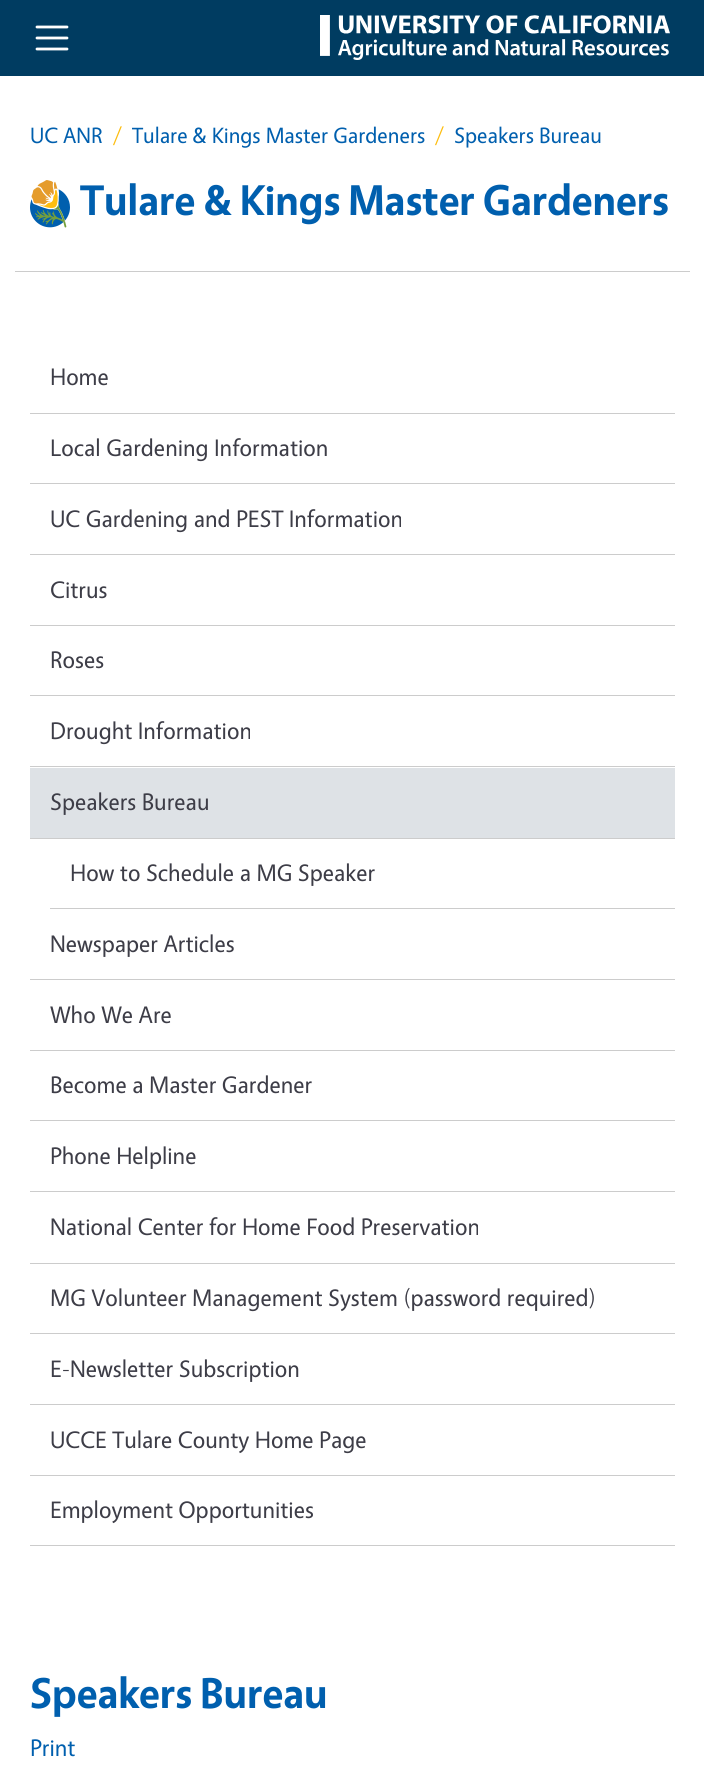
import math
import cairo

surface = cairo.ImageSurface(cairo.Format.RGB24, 704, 1771)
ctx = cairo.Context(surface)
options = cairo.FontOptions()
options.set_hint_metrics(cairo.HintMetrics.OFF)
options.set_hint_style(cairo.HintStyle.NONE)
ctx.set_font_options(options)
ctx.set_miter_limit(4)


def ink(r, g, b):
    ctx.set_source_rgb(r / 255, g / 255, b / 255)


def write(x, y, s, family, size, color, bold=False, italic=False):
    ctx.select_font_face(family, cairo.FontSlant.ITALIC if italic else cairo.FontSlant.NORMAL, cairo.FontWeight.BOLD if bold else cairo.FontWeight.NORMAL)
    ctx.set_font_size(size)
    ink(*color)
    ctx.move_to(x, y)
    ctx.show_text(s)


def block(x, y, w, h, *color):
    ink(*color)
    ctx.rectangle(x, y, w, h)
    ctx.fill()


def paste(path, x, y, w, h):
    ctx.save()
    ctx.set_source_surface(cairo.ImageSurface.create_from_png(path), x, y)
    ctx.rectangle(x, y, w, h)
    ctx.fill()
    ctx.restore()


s1 = dict(family="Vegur", size=22.25, color=(0, 95, 174))
s2 = dict(family="Vegur", size=22.25, color=(253, 189, 16))
s3 = dict(family="Vegur", size=43.25, color=(0, 95, 174), bold=True)
s4 = dict(family="Vegur", size=24, color=(61, 61, 71))
s5 = dict(family="Vegur", size=24, color=(0, 95, 174))

ink(255, 255, 255)
ctx.paint()
block(0, 0, 704, 76, 0, 60, 97)
ctx.new_path()
ctx.move_to(37, 27)
ctx.line_to(67, 27)
ctx.move_to(37, 38)
ctx.line_to(67, 38)
ctx.move_to(37, 49)
ctx.line_to(67, 49)
ink(255, 255, 255)
ctx.set_line_width(2.8)
ctx.set_line_cap(cairo.LineCap.ROUND)
ctx.stroke()
paste("pic1.png", 320, 15, 350, 45)
write(30, 143, "UC ANR", **s1)
write(113, 143, "/", **s2)
write(132, 143, "Tulare & Kings Master Gardeners", **s1)
write(435, 143, "/", **s2)
write(454, 143, "Speakers Bureau", **s1)
block(15, 271, 675, 1, 204, 204, 204)
paste("pic2.png", 30, 180, 40, 48)
write(80, 215, "Tulare & Kings Master Gardeners", **s3)
block(30, 413, 645, 1, 204, 204, 204)
write(50, 385, "Home", **s4)
block(30, 483, 645, 1, 204, 204, 204)
write(50, 456, "Local Gardening Information", **s4)
block(30, 554, 645, 1, 204, 204, 204)
write(50, 527, "UC Gardening and PEST Information", **s4)
block(30, 625, 645, 1, 204, 204, 204)
write(50, 598, "Citrus", **s4)
block(30, 695, 645, 1, 204, 204, 204)
write(50, 668, "Roses", **s4)
block(30, 766, 645, 1, 204, 204, 204)
write(50, 739, "Drought Information", **s4)
block(30, 768, 645, 70, 222, 226, 230)
block(30, 838, 645, 1, 204, 204, 204)
write(50, 810, "Speakers Bureau", **s4)
block(50, 908, 625, 1, 204, 204, 204)
write(70, 881, "How to Schedule a MG Speaker", **s4)
block(30, 979, 645, 1, 204, 204, 204)
write(50, 952, "Newspaper Articles", **s4)
block(30, 1050, 645, 1, 204, 204, 204)
write(50, 1023, "Who We Are", **s4)
block(30, 1120, 645, 1, 204, 204, 204)
write(50, 1093, "Become a Master Gardener", **s4)
block(30, 1191, 645, 1, 204, 204, 204)
write(50, 1164, "Phone Helpline", **s4)
block(30, 1263, 645, 1, 204, 204, 204)
write(50, 1235, "National Center for Home Food Preservation", **s4)
block(30, 1333, 645, 1, 204, 204, 204)
write(50, 1306, "MG Volunteer Management System (password required)", **s4)
block(30, 1404, 645, 1, 204, 204, 204)
write(50, 1377, "E-Newsletter Subscription", **s4)
block(30, 1475, 645, 1, 204, 204, 204)
write(50, 1448, "UCCE Tulare County Home Page", **s4)
block(30, 1545, 645, 1, 204, 204, 204)
write(50, 1518, "Employment Opportunities", **s4)
write(30, 1708, "Speakers Bureau", **s3)
write(30, 1756, "Print", **s5)
surface.write_to_png("screenshot.png")
